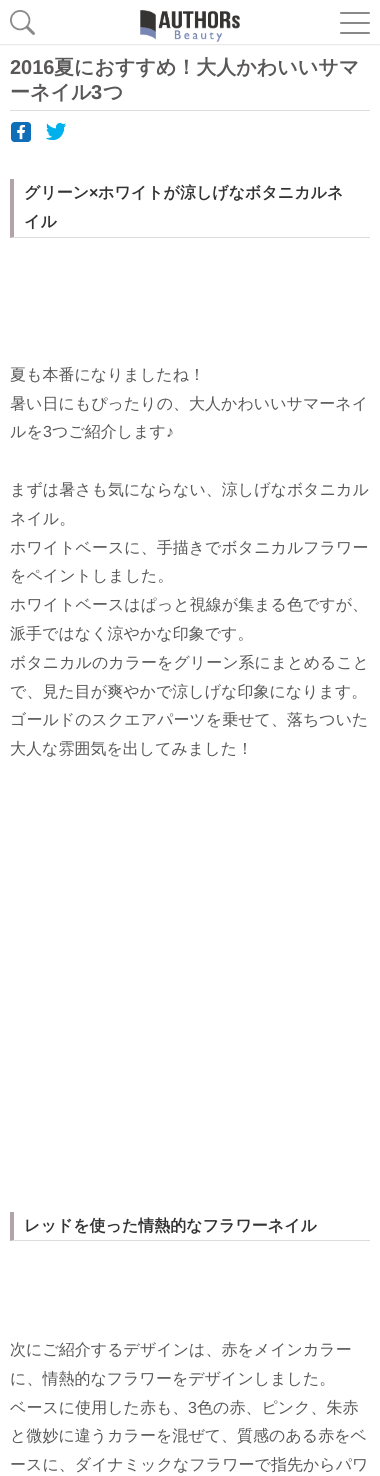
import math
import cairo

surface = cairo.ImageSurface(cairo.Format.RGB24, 380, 1476)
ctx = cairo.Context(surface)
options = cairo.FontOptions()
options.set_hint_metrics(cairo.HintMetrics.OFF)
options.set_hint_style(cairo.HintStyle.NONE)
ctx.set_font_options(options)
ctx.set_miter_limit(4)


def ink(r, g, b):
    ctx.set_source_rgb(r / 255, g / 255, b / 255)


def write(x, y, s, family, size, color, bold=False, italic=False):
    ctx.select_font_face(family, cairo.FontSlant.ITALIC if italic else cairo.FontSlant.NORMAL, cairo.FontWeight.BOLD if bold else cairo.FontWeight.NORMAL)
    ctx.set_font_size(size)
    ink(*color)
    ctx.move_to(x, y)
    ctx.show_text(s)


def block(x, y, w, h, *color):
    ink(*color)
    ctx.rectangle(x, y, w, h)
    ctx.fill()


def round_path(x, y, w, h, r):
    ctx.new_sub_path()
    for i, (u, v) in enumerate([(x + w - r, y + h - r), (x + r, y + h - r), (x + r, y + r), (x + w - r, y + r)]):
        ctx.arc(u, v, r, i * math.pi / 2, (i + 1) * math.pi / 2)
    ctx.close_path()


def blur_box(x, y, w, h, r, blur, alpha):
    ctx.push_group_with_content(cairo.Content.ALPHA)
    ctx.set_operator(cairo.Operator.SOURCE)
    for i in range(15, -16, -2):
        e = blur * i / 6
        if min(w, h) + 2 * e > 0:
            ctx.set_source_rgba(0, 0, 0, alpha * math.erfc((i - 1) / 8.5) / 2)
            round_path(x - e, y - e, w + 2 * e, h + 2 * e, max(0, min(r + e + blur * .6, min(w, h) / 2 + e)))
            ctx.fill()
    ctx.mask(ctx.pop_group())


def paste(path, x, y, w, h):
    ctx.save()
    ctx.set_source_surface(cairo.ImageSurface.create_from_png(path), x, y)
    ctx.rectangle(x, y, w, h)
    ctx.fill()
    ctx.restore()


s1 = dict(family="Liberation Sans", size=20, color=(89, 87, 87), bold=True)
s2 = dict(family="WenQuanYi Zen Hei", size=20, color=(89, 87, 87), bold=True)
s3 = dict(family="WenQuanYi Zen Hei", size=16, color=(51, 51, 51), bold=True)
s4 = dict(family="Liberation Sans", size=16, color=(51, 51, 51), bold=True)
s5 = dict(family="WenQuanYi Zen Hei Medium", size=16, color=(89, 87, 87))
s6 = dict(family="Liberation Sans", size=16, color=(89, 87, 87))

ink(255, 255, 255)
ctx.paint()
ctx.save()
ctx.rectangle(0, 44, 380, 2)
ctx.clip()
ink(204, 204, 204)
blur_box(0, 1, 380, 44, 0, 0.5, 0.5)
ctx.restore()
paste("pic1.png", 10, 10, 25, 25)
paste("pic2.png", 140, 10, 100, 32)
ink(137, 137, 137)
round_path(340, 12, 30, 2, 1)
ctx.fill()
round_path(340, 22, 30, 2, 1)
ctx.fill()
round_path(340, 32, 30, 2, 1)
ctx.fill()
block(10, 110, 360, 1, 221, 221, 221)
write(10, 74, "2016", **s1)
write(54, 74, "夏におすすめ！大人かわいいサマ", **s2)
write(10, 99, "ーネイル", **s2)
write(91, 99, "3", **s1)
write(103, 99, "つ", **s2)
paste("pic3.png", 11, 122, 20, 20)
paste("pic4.png", 46, 123, 20, 17)
ink(221, 221, 221)
ctx.new_path()
ctx.move_to(370, 238)
ctx.line_to(10, 238)
ctx.line_to(14, 237)
ctx.line_to(370, 237)
ctx.close_path()
ctx.fill()
ink(178, 163, 171)
ctx.new_path()
ctx.move_to(10, 238)
ctx.line_to(10, 179)
ctx.line_to(14, 179)
ctx.line_to(14, 237)
ctx.close_path()
ctx.fill()
write(24, 198, "グリーン", **s3)
write(89, 198, "×", **s4)
write(98, 198, "ホワイトが涼しげなボタニカルネ", **s3)
write(24, 227, "イル", **s3)
write(10, 380, "夏も本番になりましたね！", **s5)
write(10, 409, "暑い日にもぴったりの、大人かわいいサマーネイ", **s5)
write(10, 437, "ルを", **s5)
write(43, 437, "3", **s6)
write(52, 437, "つご紹介します", **s5)
write(166, 437, "♪", **s6)
write(10, 495, "まずは暑さも気にならない、涼しげなボタニカル", **s5)
write(10, 524, "ネイル。", **s5)
write(10, 553, "ホワイトベースに、手描きでボタニカルフラワー", **s5)
write(10, 581, "をペイントしました。", **s5)
write(10, 610, "ホワイトベースはぱっと視線が集まる色ですが、", **s5)
write(10, 639, "派手ではなく涼やかな印象です。", **s5)
write(10, 668, "ボタニカルのカラーをグリーン系にまとめること", **s5)
write(10, 697, "で、見た目が爽やかで涼しげな印象になります。", **s5)
write(10, 725, "ゴールドのスクエアパーツを乗せて、落ちついた", **s5)
write(10, 754, "大人な雰囲気を出してみました！", **s5)
ink(221, 221, 221)
ctx.new_path()
ctx.move_to(370, 1241)
ctx.line_to(10, 1241)
ctx.line_to(14, 1240)
ctx.line_to(370, 1240)
ctx.close_path()
ctx.fill()
ink(178, 163, 171)
ctx.new_path()
ctx.move_to(10, 1241)
ctx.line_to(10, 1212)
ctx.line_to(14, 1212)
ctx.line_to(14, 1240)
ctx.close_path()
ctx.fill()
write(24, 1231, "レッドを使った情熱的なフラワーネイル", **s3)
write(10, 1355, "次にご紹介するデザインは、赤をメインカラー", **s5)
write(10, 1384, "に、情熱的なフラワーをデザインしました。", **s5)
write(10, 1413, "ベースに使用した赤も、", **s5)
write(188, 1413, "3", **s6)
write(197, 1413, "色の赤、ピンク、朱赤", **s5)
write(10, 1441, "と微妙に違うカラーを混ぜて、質感のある赤をベ", **s5)
write(10, 1470, "ースに、ダイナミックなフラワーで指先からパワ", **s5)
surface.write_to_png("screenshot.png")
